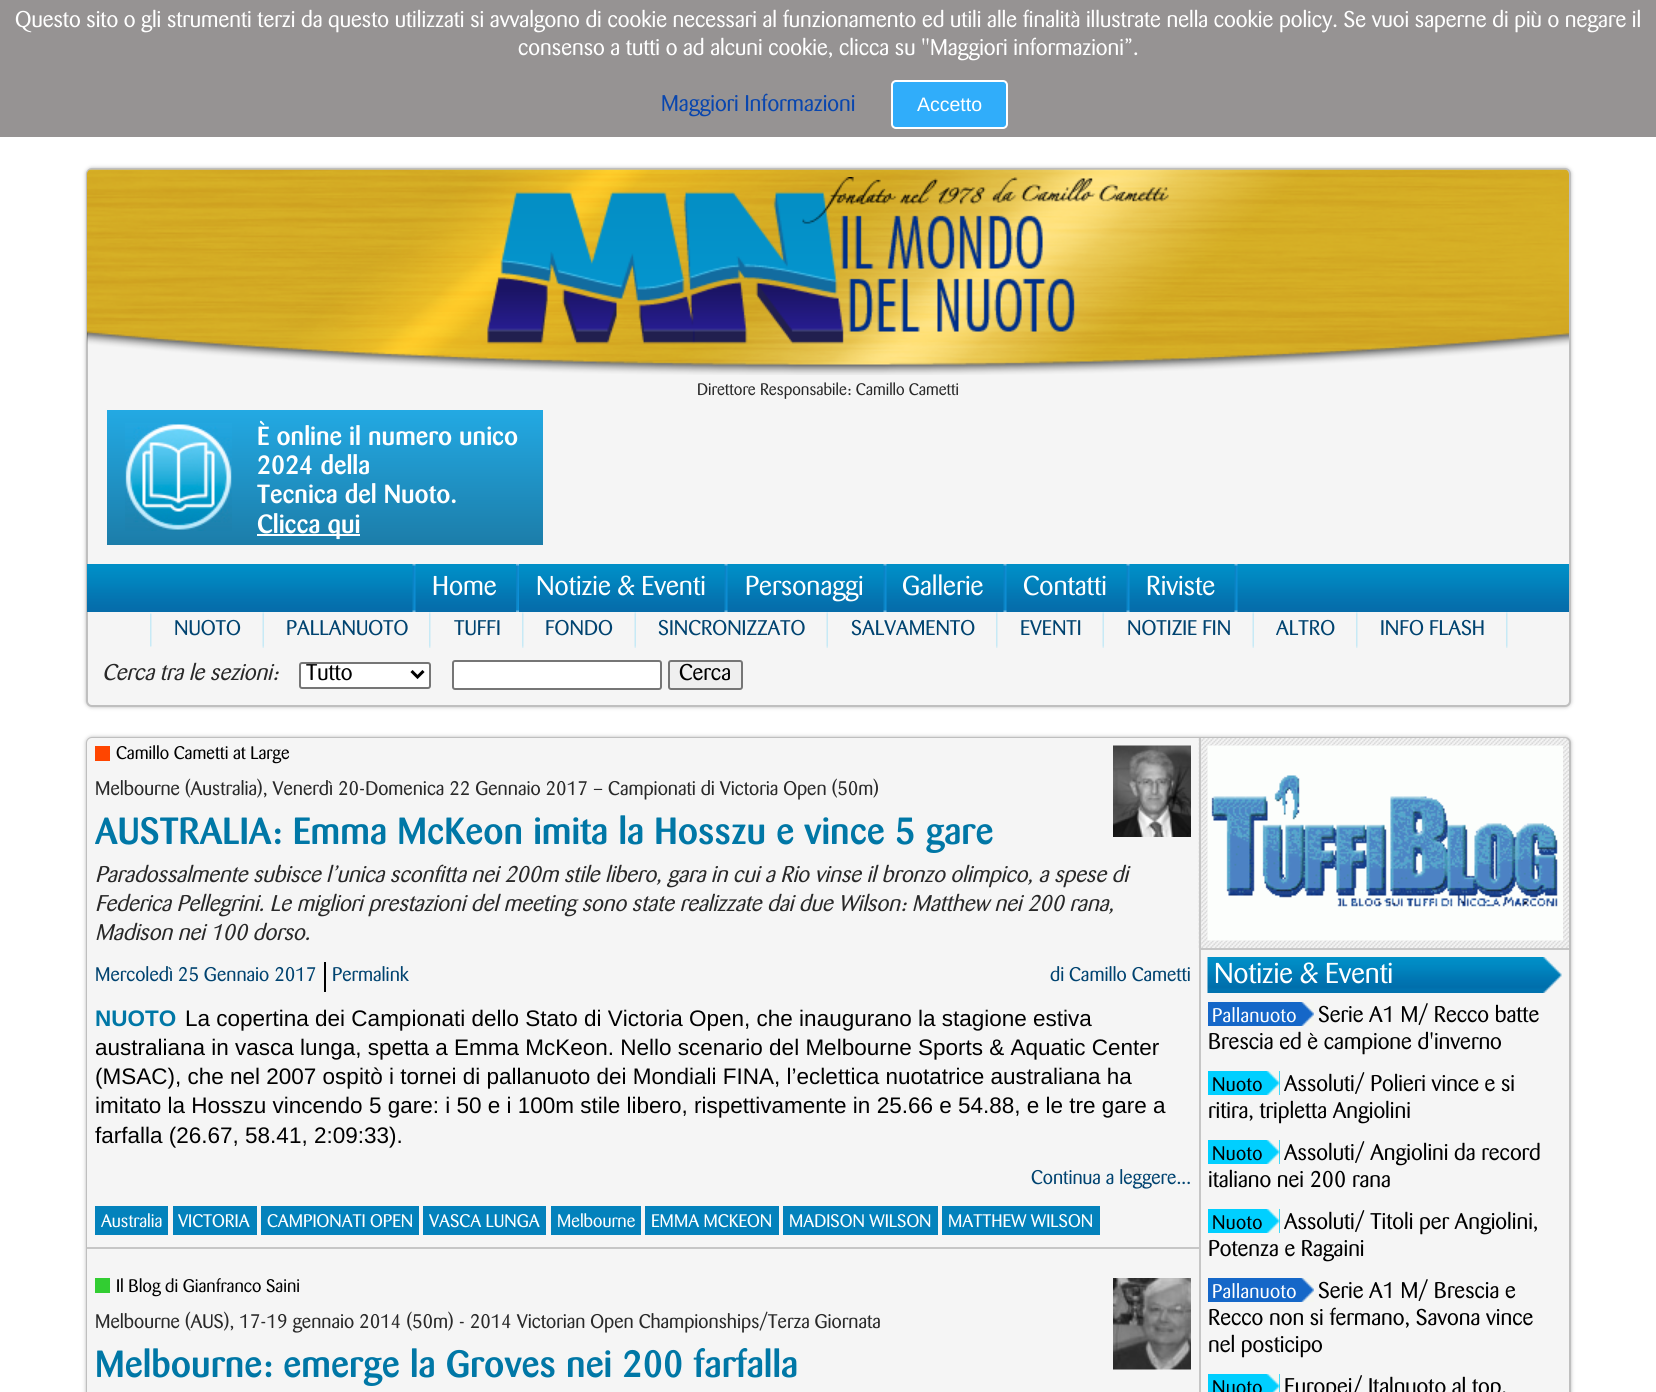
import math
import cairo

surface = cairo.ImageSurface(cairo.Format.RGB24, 1656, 1392)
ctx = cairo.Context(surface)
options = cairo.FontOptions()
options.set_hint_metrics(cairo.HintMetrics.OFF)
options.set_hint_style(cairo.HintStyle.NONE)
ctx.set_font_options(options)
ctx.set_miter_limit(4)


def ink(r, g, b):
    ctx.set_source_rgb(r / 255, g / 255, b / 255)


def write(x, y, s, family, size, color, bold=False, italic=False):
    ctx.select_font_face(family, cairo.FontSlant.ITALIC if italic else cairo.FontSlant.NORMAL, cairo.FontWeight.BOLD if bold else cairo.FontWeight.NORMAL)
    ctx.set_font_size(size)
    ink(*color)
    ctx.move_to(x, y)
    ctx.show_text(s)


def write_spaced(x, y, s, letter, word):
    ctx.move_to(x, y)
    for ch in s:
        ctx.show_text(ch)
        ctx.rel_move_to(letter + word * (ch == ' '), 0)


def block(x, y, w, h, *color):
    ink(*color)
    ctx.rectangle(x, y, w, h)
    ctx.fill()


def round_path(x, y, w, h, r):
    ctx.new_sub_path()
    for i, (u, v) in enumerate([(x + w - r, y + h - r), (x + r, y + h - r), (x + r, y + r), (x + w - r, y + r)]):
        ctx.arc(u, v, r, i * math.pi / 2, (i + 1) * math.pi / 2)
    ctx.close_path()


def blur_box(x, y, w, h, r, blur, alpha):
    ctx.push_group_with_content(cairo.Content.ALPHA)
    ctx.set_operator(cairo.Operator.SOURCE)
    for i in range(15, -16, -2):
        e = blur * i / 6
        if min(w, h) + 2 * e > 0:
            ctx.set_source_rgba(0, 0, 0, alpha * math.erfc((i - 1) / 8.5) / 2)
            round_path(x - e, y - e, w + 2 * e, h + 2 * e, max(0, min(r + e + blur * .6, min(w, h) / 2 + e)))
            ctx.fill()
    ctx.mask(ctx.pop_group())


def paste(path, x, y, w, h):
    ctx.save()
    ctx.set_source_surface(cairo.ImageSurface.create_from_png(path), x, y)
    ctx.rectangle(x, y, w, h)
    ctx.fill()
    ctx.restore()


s1 = dict(family="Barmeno", size=22.5, color=(255, 255, 255))
s2 = dict(family="Barmeno", size=22.5, color=(9, 70, 174))
s3 = dict(family="Liberation Sans", size=19.5, color=(255, 255, 255))
s4 = dict(family="Barmeno", size=16.5, color=(41, 41, 41))
s5 = dict(family="Barmeno Medium", size=26, color=(255, 255, 255))
s6 = dict(family="Barmeno", size=27, color=(255, 255, 255))
s7 = dict(family="Barmeno", size=21, color=(0, 67, 112))
s8 = dict(family="Barmeno", size=22.5, color=(41, 41, 41), italic=True)
s9 = dict(family="Barmeno", size=22.5, color=(0, 0, 0))
s10 = dict(family="Barmeno", size=18, color=(0, 0, 0))
s11 = dict(family="Barmeno", size=19.5, color=(41, 41, 41))
s12 = dict(family="Barmeno Medium", size=37.5, color=(0, 119, 166))
s13 = dict(family="Barmeno", size=19.5, color=(0, 67, 112))
s14 = dict(family="Liberation Sans", size=22.5, color=(0, 119, 166), bold=True)
s15 = dict(family="Liberation Sans", size=22.5, color=(0, 0, 0))
s16 = dict(family="Barmeno", size=18, color=(255, 255, 255))
s17 = dict(family="Barmeno", size=28.5, color=(255, 255, 255))

ink(255, 255, 255)
ctx.paint()
block(0, 0, 1656, 137, 150, 147, 147)
write(15, 27, "Questo sito o gli strumenti terzi da questo utilizzati si avvalgono di cookie necessari al funzionamento ed utili alle finalità illustrate nella cookie policy. Se vuoi saperne di più o negare il", **s1)
write(518, 55, "consenso a tutti o ad alcuni cookie, clicca su \"Maggiori informazioni”.", **s1)
write(661, 111, "Maggiori Informazioni", **s2)
ink(48, 173, 250)
round_path(892, 81, 115, 47, 4)
ctx.fill_preserve()
ink(255, 255, 255)
ctx.stroke()
write(917, 111, "Accetto", **s3)
ink(187, 187, 187)
blur_box(86, 168, 1485, 539, 6, 2, 1)
ink(245, 245, 245)
round_path(87, 169, 1483, 537, 5)
ctx.fill_preserve()
ink(191, 191, 191)
ctx.stroke()
paste("pic1.png", 87, 169, 1482, 206)
paste("pic2.png", 487, 177, 682, 167)
write(697, 395, "Direttore Responsabile: Camillo Cametti", **s4)
gradient = cairo.LinearGradient(325, 410, 325, 545)
gradient.add_color_stop_rgba(0, 0.137, 0.663, 0.89, 1)
gradient.add_color_stop_rgba(1, 0.11, 0.49, 0.663, 1)
ctx.set_source(gradient)
ctx.rectangle(107, 410, 436, 135)
ctx.fill()
paste("pic3.png", 125, 423, 107, 108)
write(257, 445, "È online il numero unico", **s5)
write(257, 474, "2024 della", **s5)
write(257, 503, "Tecnica del Nuoto.", **s5)
block(257, 534, 103, 2, 255, 255, 255)
write(257, 533, "Clicca qui", **s5)
paste("pic4.png", 87, 564, 1482, 48)
paste("pic5.png", 412, 564, 4, 48)
paste("pic6.png", 516, 564, 3, 48)
write(432, 595, "Home", **s6)
paste("pic5.png", 724, 564, 4, 48)
write(536, 595, "Notizie & Eventi", **s6)
paste("pic5.png", 883, 564, 4, 48)
write(745, 595, "Personaggi", **s6)
paste("pic5.png", 1003, 564, 4, 48)
write(902, 595, "Gallerie", **s6)
paste("pic5.png", 1126, 564, 4, 48)
write(1023, 595, "Contatti", **s6)
paste("pic5.png", 1234, 564, 4, 48)
write(1146, 595, "Riviste", **s6)
paste("pic7.png", 150, 613, 2, 34)
paste("pic8.png", 262, 612, 2, 36)
write(174, 635, "NUOTO", **s7)
paste("pic9.png", 429, 612, 2, 36)
write(286, 635, "PALLANUOTO", **s7)
paste("pic9.png", 522, 612, 2, 36)
write(454, 635, "TUFFI", **s7)
paste("pic8.png", 634, 612, 2, 36)
write(545, 635, "FONDO", **s7)
paste("pic8.png", 826, 612, 2, 36)
write(658, 635, "SINCRONIZZATO", **s7)
paste("pic9.png", 996, 612, 2, 36)
write(851, 635, "SALVAMENTO", **s7)
paste("pic8.png", 1102, 612, 2, 36)
write(1020, 635, "EVENTI", **s7)
paste("pic8.png", 1252, 612, 2, 36)
write(1127, 635, "NOTIZIE FIN", **s7)
paste("pic9.png", 1356, 612, 2, 36)
write(1276, 635, "ALTRO", **s7)
paste("pic9.png", 1506, 612, 2, 36)
write(1380, 635, "INFO FLASH", **s7)
write(102, 680, "Cerca tra le sezioni:", **s8)
ink(255, 255, 255)
round_path(300, 663, 130, 25, 2)
ctx.fill_preserve()
ink(118, 118, 118)
ctx.stroke()
ctx.new_path()
ctx.move_to(411.5, 671)
ctx.line_to(417.5, 677)
ctx.line_to(423.5, 671)
ink(0, 0, 0)
ctx.set_line_width(3)
ctx.stroke()
write(306, 680, "Tutto", **s9)
ink(255, 255, 255)
round_path(453, 661, 208, 28, 2)
ctx.fill_preserve()
ink(118, 118, 118)
ctx.set_line_width(2)
ctx.stroke()
ink(239, 239, 239)
round_path(669, 661, 73, 28, 2)
ctx.fill_preserve()
ink(118, 118, 118)
ctx.stroke()
write(679, 680, "Cerca", **s9)
ink(187, 187, 187)
blur_box(86, 737, 1485, 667, 6, 2, 1)
round_path(87, 738, 1483, 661, 5)
ink(191, 191, 191)
ctx.stroke()
ink(245, 245, 245)
round_path(87, 738, 1482, 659, 5)
ctx.fill()
block(87, 1247, 1112, 2, 198, 198, 198)
block(95, 746, 15, 15, 255, 69, 0)
write(116, 759, "Camillo Cametti at Large", **s10)
paste("pic10.png", 1113, 745, 78, 92)
write(95, 795, "Melbourne (Australia), Venerdì 20-Domenica 22 Gennaio 2017 – Campionati di Victoria Open (50m)", **s11)
write(95, 844, "AUSTRALIA: Emma McKeon imita la Hosszu e vince 5 gare", **s12)
write(95, 882, "Paradossalmente subisce l’unica sconfitta nei 200m stile libero, gara in cui a Rio vinse il bronzo olimpico, a spese di", **s8)
write(95, 911, "Federica Pellegrini. Le migliori prestazioni del meeting sono state realizzate dai due Wilson: Matthew nei 200 rana,", **s8)
write(95, 940, "Madison nei 100 dorso.", **s8)
block(324, 962, 2, 30, 0, 0, 0)
write(95, 981, "Mercoledì 25 Gennaio 2017", **s13)
write(332, 981, "Permalink", **s13)
write(1050, 981, "di Camillo Cametti", **s13)
write(95, 1026, "NUOTO", **s14)
write(185, 1026, "La copertina dei Campionati dello Stato di Victoria Open, che inaugurano la stagione estiva", **s15)
write(95, 1055, "australiana in vasca lunga, spetta a Emma McKeon. Nello scenario del Melbourne Sports & Aquatic Center", **s15)
write(95, 1084, "(MSAC), che nel 2007 ospitò i tornei di pallanuoto dei Mondiali FINA, l’eclettica nuotatrice australiana ha", **s15)
write(95, 1113, "imitato la Hosszu vincendo 5 gare: i 50 e i 100m stile libero, rispettivamente in 25.66 e 54.88, e le tre gare a", **s15)
write(95, 1143, "farfalla (26.67, 58.41, 2:09:33).", **s15)
write(1031, 1184, "Continua a leggere...", **s13)
block(95, 1206, 73, 29, 3, 130, 188)
write(101, 1227, "Australia", **s16)
block(173, 1206, 84, 29, 3, 130, 188)
write(178, 1227, "VICTORIA", **s16)
block(261, 1206, 158, 29, 3, 130, 188)
write(267, 1227, "CAMPIONATI OPEN", **s16)
block(423, 1206, 123, 29, 3, 130, 188)
write(429, 1227, "VASCA LUNGA", **s16)
block(551, 1206, 90, 29, 3, 130, 188)
write(557, 1227, "Melbourne", **s16)
block(645, 1206, 134, 29, 3, 130, 188)
write(651, 1227, "EMMA MCKEON", **s16)
block(783, 1206, 155, 29, 3, 130, 188)
write(789, 1227, "MADISON WILSON", **s16)
block(942, 1206, 158, 29, 3, 130, 188)
write(948, 1227, "MATTHEW WILSON", **s16)
block(95, 1278, 15, 15, 50, 205, 50)
write(116, 1292, "Il Blog di Gianfranco Saini", **s10)
paste("pic11.png", 1113, 1278, 78, 92)
write(95, 1328, "Melbourne (AUS), 17-19 gennaio 2014 (50m) - 2014 Victorian Open Championships/Terza Giornata", **s11)
write(95, 1377, "Melbourne: emerge la Groves nei 200 farfalla", **s12)
paste("pic12.png", 1198, 738, 371, 210)
block(1199, 948, 370, 2, 198, 198, 198)
block(1199, 738, 2, 212, 198, 198, 198)
paste("pic13.png", 1207, 745, 356, 196)
block(1199, 950, 2, 442, 198, 198, 198)
paste("pic14.png", 1207, 957, 355, 36)
write(1214, 983, "Notizie & Eventi", **s17)
block(1208, 1002, 106, 24, 21, 103, 200)
ctx.set_font_size(19.5)
ink(255, 255, 255)
write_spaced(1212, 1022, "Pallanuoto", 0.4, 0)
paste("pic15.png", 1300, 1002, 14, 24)
write(1318, 1022, "Serie A1 M/ Recco batte", **s9)
write(1208, 1049, "Brescia ed è campione d'inverno", **s9)
block(1208, 1071, 72, 24, 0, 207, 255)
ctx.set_font_size(19.5)
ink(0, 0, 0)
write_spaced(1212, 1091, "Nuoto", 0.4, 0)
paste("pic16.png", 1266, 1071, 14, 24)
write(1284, 1091, "Assoluti/ Polieri vince e si", **s9)
write(1208, 1118, "ritira, tripletta Angiolini", **s9)
block(1208, 1140, 72, 24, 0, 207, 255)
ctx.set_font_size(19.5)
ink(0, 0, 0)
write_spaced(1212, 1160, "Nuoto", 0.4, 0)
paste("pic16.png", 1266, 1140, 14, 24)
write(1284, 1160, "Assoluti/ Angiolini da record", **s9)
write(1208, 1187, "italiano nei 200 rana", **s9)
block(1208, 1209, 72, 24, 0, 207, 255)
ctx.set_font_size(19.5)
ink(0, 0, 0)
write_spaced(1212, 1229, "Nuoto", 0.4, 0)
paste("pic16.png", 1266, 1209, 14, 24)
write(1284, 1229, "Assoluti/ Titoli per Angiolini,", **s9)
write(1208, 1256, "Potenza e Ragaini", **s9)
block(1208, 1278, 106, 24, 21, 103, 200)
ctx.set_font_size(19.5)
ink(255, 255, 255)
write_spaced(1212, 1298, "Pallanuoto", 0.4, 0)
paste("pic15.png", 1300, 1278, 14, 24)
write(1318, 1298, "Serie A1 M/ Brescia e", **s9)
write(1208, 1325, "Recco non si fermano, Savona vince", **s9)
write(1208, 1352, "nel posticipo", **s9)
block(1208, 1374, 72, 18, 0, 207, 255)
ctx.set_font_size(19.5)
ink(0, 0, 0)
write_spaced(1212, 1394, "Nuoto", 0.4, 0)
paste("pic17.png", 1266, 1374, 14, 18)
write(1284, 1394, "Europei/ Italnuoto al top,", **s9)
surface.write_to_png("screenshot.png")
